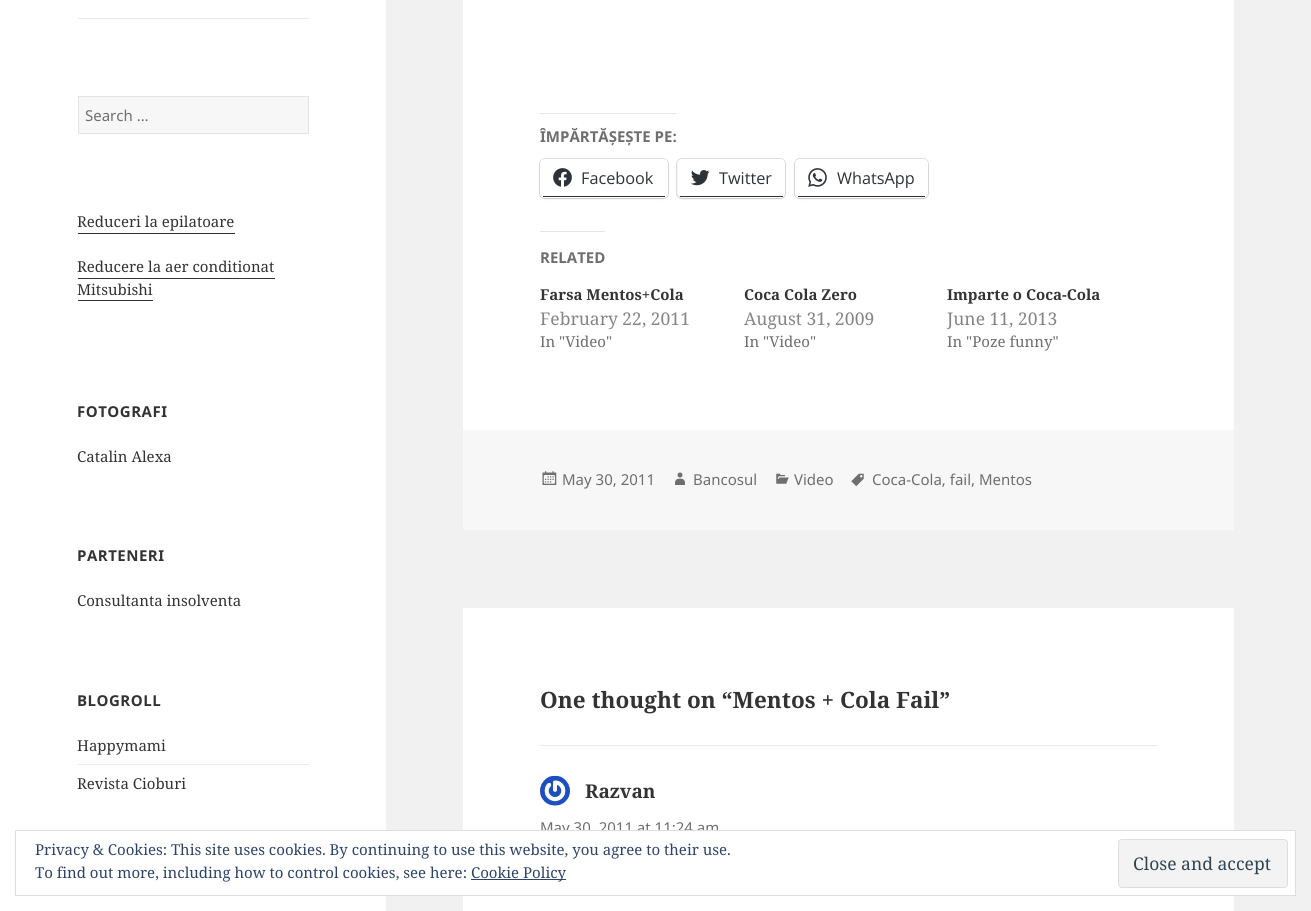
import math
import cairo

surface = cairo.ImageSurface(cairo.Format.RGB24, 1311, 911)
ctx = cairo.Context(surface)
options = cairo.FontOptions()
options.set_hint_metrics(cairo.HintMetrics.OFF)
options.set_hint_style(cairo.HintStyle.NONE)
ctx.set_font_options(options)
ctx.set_miter_limit(4)


def ink(r, g, b):
    ctx.set_source_rgb(r / 255, g / 255, b / 255)


def write(x, y, s, family, size, color, bold=False, italic=False):
    ctx.select_font_face(family, cairo.FontSlant.ITALIC if italic else cairo.FontSlant.NORMAL, cairo.FontWeight.BOLD if bold else cairo.FontWeight.NORMAL)
    ctx.set_font_size(size)
    ink(*color)
    ctx.move_to(x, y)
    ctx.show_text(s)


def write_spaced(x, y, s, letter, word):
    ctx.move_to(x, y)
    for ch in s:
        ctx.show_text(ch)
        ctx.rel_move_to(letter + word * (ch == ' '), 0)


def block(x, y, w, h, *color):
    ink(*color)
    ctx.rectangle(x, y, w, h)
    ctx.fill()


def round_path(x, y, w, h, r):
    ctx.new_sub_path()
    for i, (u, v) in enumerate([(x + w - r, y + h - r), (x + r, y + h - r), (x + r, y + r), (x + w - r, y + r)]):
        ctx.arc(u, v, r, i * math.pi / 2, (i + 1) * math.pi / 2)
    ctx.close_path()


def blur_box(x, y, w, h, r, blur, alpha):
    ctx.push_group_with_content(cairo.Content.ALPHA)
    ctx.set_operator(cairo.Operator.SOURCE)
    for i in range(15, -16, -2):
        e = blur * i / 6
        if min(w, h) + 2 * e > 0:
            ctx.set_source_rgba(0, 0, 0, alpha * math.erfc((i - 1) / 8.5) / 2)
            round_path(x - e, y - e, w + 2 * e, h + 2 * e, max(0, min(r + e + blur * .6, min(w, h) / 2 + e)))
            ctx.fill()
    ctx.mask(ctx.pop_group())


def paste(path, x, y, w, h):
    ctx.save()
    ctx.set_source_surface(cairo.ImageSurface.create_from_png(path), x, y)
    ctx.rectangle(x, y, w, h)
    ctx.fill()
    ctx.restore()


s1 = dict(family="Noto Sans", size=15, color=(110, 110, 110))
s2 = dict(family="Noto Serif", size=15, color=(51, 51, 51))
s3 = dict(family="Noto Sans", size=15, color=(110, 110, 110), bold=True)
s4 = dict(family="Open Sans", size=16.25, color=(44, 51, 56))
s5 = dict(family="Noto Serif", size=15, color=(51, 51, 51), bold=True)
s6 = dict(family="Noto Serif", size=17.5, color=(133, 133, 133))
s7 = dict(family="Noto Serif", size=15, color=(110, 110, 110))
s8 = dict(family="Noto Serif", size=22.5, color=(51, 51, 51), bold=True)
s9 = dict(family="Noto Serif", size=19, color=(51, 51, 51), bold=True)
s10 = dict(family="Noto Serif", size=15, color=(46, 68, 103))
s11 = dict(family="Noto Serif", size=17.5, color=(46, 68, 83))

ink(241, 241, 241)
ctx.paint()
block(0, 0, 386, 911, 255, 255, 255)
block(78, 18, 231, 1, 235, 235, 235)
ink(247, 247, 247)
ctx.rectangle(78.5, 96.5, 230, 37)
ctx.fill_preserve()
ink(227, 227, 227)
ctx.set_line_width(1)
ctx.stroke()
write(85, 121, "Search …", **s1)
write(77, 227, "Reduceri la epilatoare", **s2)
block(78, 233, 157, 1, 51, 51, 51)
write(77, 272, "Reducere la aer conditionat", **s2)
write(77, 295, "Mitsubishi", **s2)
block(78, 278, 197, 1, 51, 51, 51)
block(78, 300, 75, 1, 51, 51, 51)
ctx.select_font_face("Noto Sans", cairo.FontSlant.NORMAL, cairo.FontWeight.BOLD)
write_spaced(77, 417, "FOTOGRAFI", 0.5, 0)
write(77, 462, "Catalin Alexa", **s2)
ctx.select_font_face("Noto Sans", cairo.FontSlant.NORMAL, cairo.FontWeight.BOLD)
write_spaced(77, 561, "PARTENERI", 0.5, 0)
write(77, 606, "Consultanta insolventa", **s2)
ctx.select_font_face("Noto Sans", cairo.FontSlant.NORMAL, cairo.FontWeight.BOLD)
write_spaced(77, 706, "BLOGROLL", 0.5, 0)
write(77, 751, "Happymami", **s2)
block(78, 764, 231, 1, 235, 235, 235)
write(77, 789, "Revista Cioburi", **s2)
block(463, 0, 771, 430, 255, 255, 255)
block(540, 113, 136, 1, 231, 231, 232)
write(540, 142, "ÎMPĂRTĂȘEȘTE PE:", **s3)
round_path(539.5, 158.5, 129, 40, 5.5)
ink(224, 224, 224)
ctx.stroke()
ink(0, 0, 0)
blur_box(540, 160, 128, 39, 5, 1, 0.12)
ink(255, 255, 255)
round_path(540, 159, 128, 39, 5)
ctx.fill()
block(543, 196, 122, 1, 51, 51, 51)
paste("pic1.png", 553, 168, 19, 19)
write(581, 184, "Facebook", **s4)
round_path(676.5, 158.5, 109, 40, 5.5)
ink(224, 224, 224)
ctx.stroke()
ink(0, 0, 0)
blur_box(678, 160, 107, 39, 5, 1, 0.12)
ink(255, 255, 255)
round_path(678, 159, 107, 39, 5)
ctx.fill()
block(680, 196, 103, 1, 51, 51, 51)
paste("pic2.png", 691, 170, 19, 16)
write(719, 184, "Twitter", **s4)
round_path(794.5, 158.5, 134, 40, 5.5)
ink(224, 224, 224)
ctx.stroke()
ink(0, 0, 0)
blur_box(795, 160, 133, 39, 5, 1, 0.12)
ink(255, 255, 255)
round_path(795, 159, 133, 39, 5)
ctx.fill()
block(798, 196, 127, 1, 51, 51, 51)
paste("pic3.png", 808, 168, 19, 19)
write(837, 184, "WhatsApp", **s4)
block(540, 231, 65, 1, 230, 230, 230)
write(540, 263, "RELATED", **s3)
write(540, 300, "Farsa Mentos+Cola", **s5)
write(540, 325, "February 22, 2011", **s6)
write(540, 347, "In \"Video\"", **s7)
write(744, 300, "Coca Cola Zero", **s5)
write(744, 325, "August 31, 2009", **s6)
write(744, 347, "In \"Video\"", **s7)
write(947, 300, "Imparte o Coca-Cola", **s5)
write(947, 325, "June 11, 2013", **s6)
write(947, 347, "In \"Poze funny\"", **s7)
block(463, 430, 771, 100, 247, 247, 247)
paste("pic4.png", 542, 471, 15, 14)
write(562, 485, "May 30, 2011", **s1)
paste("pic5.png", 675, 472, 10, 13)
write(693, 485, "Bancosul", **s1)
paste("pic6.png", 776, 473, 13, 11)
write(794, 485, "Video", **s1)
paste("pic7.png", 851, 473, 13, 14)
write(872, 485, "Coca-Cola, fail, Mentos", **s1)
block(463, 608, 771, 303, 255, 255, 255)
write(540, 708, "One thought on “Mentos + Cola Fail”", **s8)
block(540, 745, 618, 1, 235, 235, 235)
paste("pic8.png", 540, 775, 30, 31)
write(585, 798, "Razvan", **s9)
write(540, 833, "May 30, 2011 at 11:24 am", **s1)
block(386, 831, 909, 64, 255, 255, 255)
ctx.rectangle(15.5, 830.5, 1280, 65)
ink(222, 222, 222)
ctx.stroke()
write(35, 855, "Privacy & Cookies: This site uses cookies. By continuing to use this website, you agree to their use.", **s10)
write(35, 878, "To find out more, including how to control cookies, see here:", **s10)
block(471, 879, 95, 1, 46, 68, 103)
write(471, 878, "Cookie Policy", **s10)
ink(243, 243, 243)
round_path(1118.5, 839.5, 169, 48, 3.5)
ctx.fill_preserve()
ink(222, 222, 222)
ctx.stroke()
write(1133, 870, "Close and accept", **s11)
surface.write_to_png("screenshot.png")
